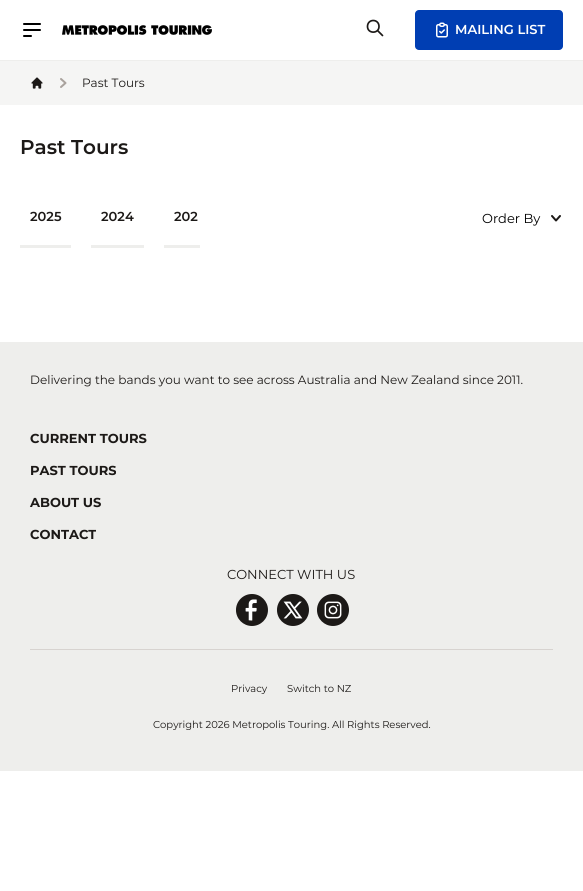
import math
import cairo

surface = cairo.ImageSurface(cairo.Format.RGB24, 583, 891)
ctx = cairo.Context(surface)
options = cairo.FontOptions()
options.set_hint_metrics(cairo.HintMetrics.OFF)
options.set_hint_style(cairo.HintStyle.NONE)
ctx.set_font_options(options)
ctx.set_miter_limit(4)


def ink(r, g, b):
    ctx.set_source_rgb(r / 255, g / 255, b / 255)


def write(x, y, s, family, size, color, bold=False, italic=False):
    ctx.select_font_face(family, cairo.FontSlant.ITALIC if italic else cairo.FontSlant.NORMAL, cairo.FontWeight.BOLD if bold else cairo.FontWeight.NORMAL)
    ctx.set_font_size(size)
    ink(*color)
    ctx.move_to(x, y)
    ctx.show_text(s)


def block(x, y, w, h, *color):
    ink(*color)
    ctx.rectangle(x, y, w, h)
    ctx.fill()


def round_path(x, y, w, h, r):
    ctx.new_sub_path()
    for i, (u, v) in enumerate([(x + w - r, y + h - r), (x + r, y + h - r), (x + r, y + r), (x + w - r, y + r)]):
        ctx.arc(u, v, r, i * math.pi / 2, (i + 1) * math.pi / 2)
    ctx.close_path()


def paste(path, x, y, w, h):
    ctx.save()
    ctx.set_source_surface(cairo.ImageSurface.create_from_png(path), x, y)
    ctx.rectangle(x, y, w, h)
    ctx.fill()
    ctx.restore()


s1 = dict(family="Montserrat SemiBold", size=13, color=(255, 255, 255))
s2 = dict(family="Montserrat", size=12, color=(28, 25, 23))
s3 = dict(family="Montserrat SemiBold", size=20, color=(28, 25, 23))
s4 = dict(family="Montserrat SemiBold", size=13, color=(28, 25, 23))
s5 = dict(family="Montserrat", size=13, color=(0, 0, 0))
s6 = dict(family="Montserrat", size=13, color=(28, 25, 23), bold=True)
s7 = dict(family="Montserrat", size=13, color=(28, 25, 23))
s8 = dict(family="Montserrat", size=10, color=(28, 25, 23))

ink(255, 255, 255)
ctx.paint()
block(0, 60, 583, 1, 238, 238, 236)
ctx.new_path()
ctx.move_to(24, 24)
ctx.line_to(40, 24)
ctx.move_to(24, 30)
ctx.line_to(40, 30)
ctx.move_to(24, 36)
ctx.line_to(31, 36)
ink(0, 0, 0)
ctx.set_line_cap(cairo.LineCap.ROUND)
ctx.set_line_join(cairo.LineJoin.ROUND)
ctx.stroke()
paste("pic1.png", 62, 25, 150, 10)
ctx.new_path()
ctx.move_to(382.5, 35.5)
ctx.line_to(377.5, 30.5)
ctx.move_to(379, 26.5)
ctx.curve_to(379, 34, 367.5, 34, 367.5, 26.5)
ctx.curve_to(367.5, 18.5, 379, 18.5, 379, 26.5)
ctx.close_path()
ink(28, 25, 23)
ctx.set_line_width(1.7)
ctx.stroke()
ink(0, 62, 179)
round_path(415, 10, 148, 40, 4)
ctx.fill()
paste("pic2.png", 436, 22, 12, 16)
write(455, 34, "MAILING LIST", **s1)
block(0, 61, 583, 44, 245, 245, 244)
paste("pic3.png", 31, 77, 12, 12)
ctx.new_path()
ctx.move_to(61, 79)
ctx.line_to(65.5, 83)
ctx.line_to(61, 87)
ink(169, 162, 157)
ctx.set_line_width(2)
ctx.stroke()
write(82, 87, "Past Tours", **s2)
write(20, 154, "Past Tours", **s3)
block(20, 245, 51, 3, 238, 238, 236)
write(30, 221, "2025", **s4)
block(91, 245, 53, 3, 238, 238, 236)
write(101, 221, "2024", **s4)
block(164, 245, 36, 3, 238, 238, 236)
write(174, 221, "202", **s4)
ctx.new_path()
ctx.move_to(560, 216)
ctx.line_to(556, 220.5)
ctx.line_to(552, 216)
ctx.stroke()
write(482, 223, "Order By", **s5)
block(0, 342, 583, 429, 238, 238, 236)
write(30, 384, "Delivering the bands you want to see across Australia and New Zealand since 2011.", **s2)
block(30, 649, 523, 1, 215, 211, 208)
write(30, 443, "CURRENT TOURS", **s6)
write(30, 475, "PAST TOURS", **s6)
write(30, 507, "ABOUT US", **s6)
write(30, 539, "CONTACT", **s6)
write(227, 579, "CONNECT WITH US", **s7)
paste("pic4.png", 236, 594, 32, 32)
paste("pic5.png", 277, 594, 32, 32)
paste("pic6.png", 317, 594, 32, 32)
write(231, 692, "Privacy", **s8)
write(287, 692, "Switch to NZ", **s8)
write(153, 728, "Copyright 2026 Metropolis Touring. All Rights Reserved.", **s8)
surface.write_to_png("screenshot.png")
